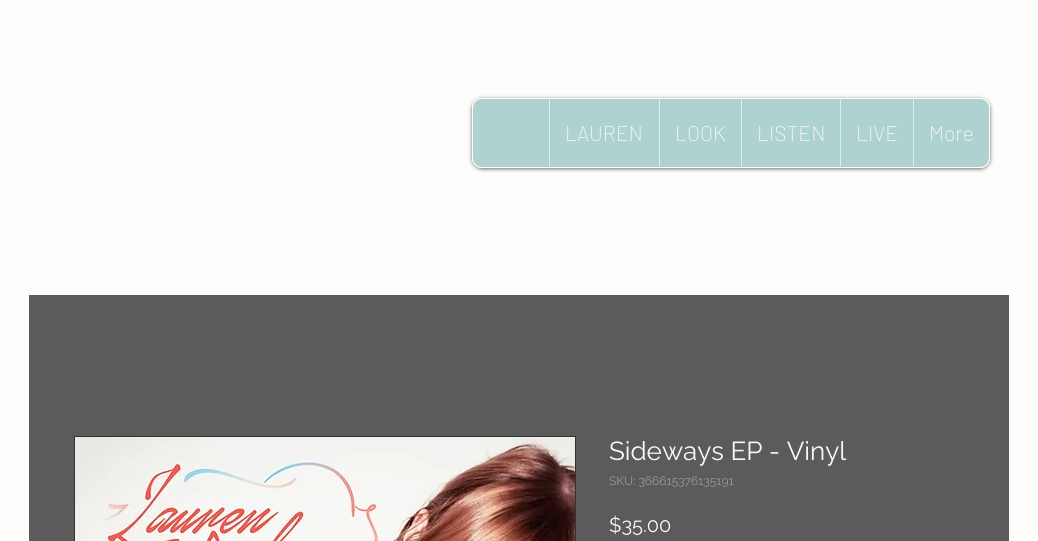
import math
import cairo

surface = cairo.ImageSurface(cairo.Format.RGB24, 1038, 541)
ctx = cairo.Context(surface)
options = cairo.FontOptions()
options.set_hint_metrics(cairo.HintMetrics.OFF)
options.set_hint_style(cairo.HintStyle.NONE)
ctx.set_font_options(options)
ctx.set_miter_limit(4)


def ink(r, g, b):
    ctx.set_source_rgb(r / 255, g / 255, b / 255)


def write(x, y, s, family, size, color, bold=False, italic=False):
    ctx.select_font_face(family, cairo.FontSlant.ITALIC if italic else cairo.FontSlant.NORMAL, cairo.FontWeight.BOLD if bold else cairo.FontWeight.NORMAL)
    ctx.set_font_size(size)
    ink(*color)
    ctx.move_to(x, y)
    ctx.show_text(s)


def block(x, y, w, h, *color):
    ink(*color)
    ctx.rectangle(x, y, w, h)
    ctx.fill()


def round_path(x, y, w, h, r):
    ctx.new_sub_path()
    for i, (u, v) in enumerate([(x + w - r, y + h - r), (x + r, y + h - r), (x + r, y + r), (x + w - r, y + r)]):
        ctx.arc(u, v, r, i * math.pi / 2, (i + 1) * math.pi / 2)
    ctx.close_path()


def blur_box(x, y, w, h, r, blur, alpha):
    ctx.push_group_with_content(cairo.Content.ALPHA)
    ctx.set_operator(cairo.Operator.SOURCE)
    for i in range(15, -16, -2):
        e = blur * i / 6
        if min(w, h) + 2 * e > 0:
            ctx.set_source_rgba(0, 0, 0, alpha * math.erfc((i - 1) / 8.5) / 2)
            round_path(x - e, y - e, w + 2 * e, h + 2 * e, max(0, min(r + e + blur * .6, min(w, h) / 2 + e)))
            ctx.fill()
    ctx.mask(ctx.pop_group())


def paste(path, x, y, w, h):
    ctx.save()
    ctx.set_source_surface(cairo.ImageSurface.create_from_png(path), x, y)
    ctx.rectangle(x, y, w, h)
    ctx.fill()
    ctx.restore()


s1 = dict(family="Barlow ExtraLight", size=21, color=(255, 247, 247))
s2 = dict(family="Raleway", size=26, color=(255, 247, 247))
s3 = dict(family="Raleway", size=12, color=(153, 153, 153))
s4 = dict(family="Raleway", size=20, color=(255, 247, 247))

ink(255, 252, 252)
ctx.paint()
ctx.save()
ctx.set_fill_rule(cairo.FillRule.EVEN_ODD)
ctx.new_path()
ctx.move_to(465, 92)
ctx.line_to(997, 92)
ctx.line_to(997, 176)
ctx.line_to(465, 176)
ctx.close_path()
ctx.move_to(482, 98)
ctx.line_to(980, 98)
ctx.curve_to(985.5, 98, 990, 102.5, 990, 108)
ctx.line_to(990, 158)
ctx.curve_to(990, 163.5, 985.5, 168, 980, 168)
ctx.line_to(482, 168)
ctx.curve_to(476.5, 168, 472, 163.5, 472, 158)
ctx.line_to(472, 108)
ctx.curve_to(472, 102.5, 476.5, 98, 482, 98)
ctx.close_path()
ctx.clip()
ink(0, 0, 0)
blur_box(472, 99, 518, 70, 10, 2, 0.6)
ctx.restore()
ctx.set_source_rgba(0.196, 0.58, 0.553, 0.4)
round_path(472.5, 98.5, 517, 69, 9.5)
ctx.fill_preserve()
ink(255, 252, 252)
ctx.set_line_width(1)
ctx.stroke()
block(549, 99, 1, 68, 225, 237, 236)
write(565, 141, "LAUREN", **s1)
block(659, 99, 1, 68, 225, 237, 236)
write(675, 141, "LOOK", **s1)
block(741, 99, 1, 68, 225, 237, 236)
write(757, 141, "LISTEN", **s1)
block(840, 99, 1, 68, 225, 237, 236)
write(856, 141, "LIVE", **s1)
block(913, 99, 1, 68, 225, 237, 236)
write(929, 141, "More", **s1)
block(29, 295, 980, 246, 92, 91, 91)
ctx.rectangle(74.5, 436.5, 501, 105)
ink(51, 51, 51)
ctx.stroke()
paste("pic1.png", 75, 437, 500, 104)
write(609, 460, "Sideways EP - Vinyl", **s2)
write(609, 485, "SKU: 366615376135191", **s3)
write(609, 532, "$35.00", **s4)
surface.write_to_png("screenshot.png")
